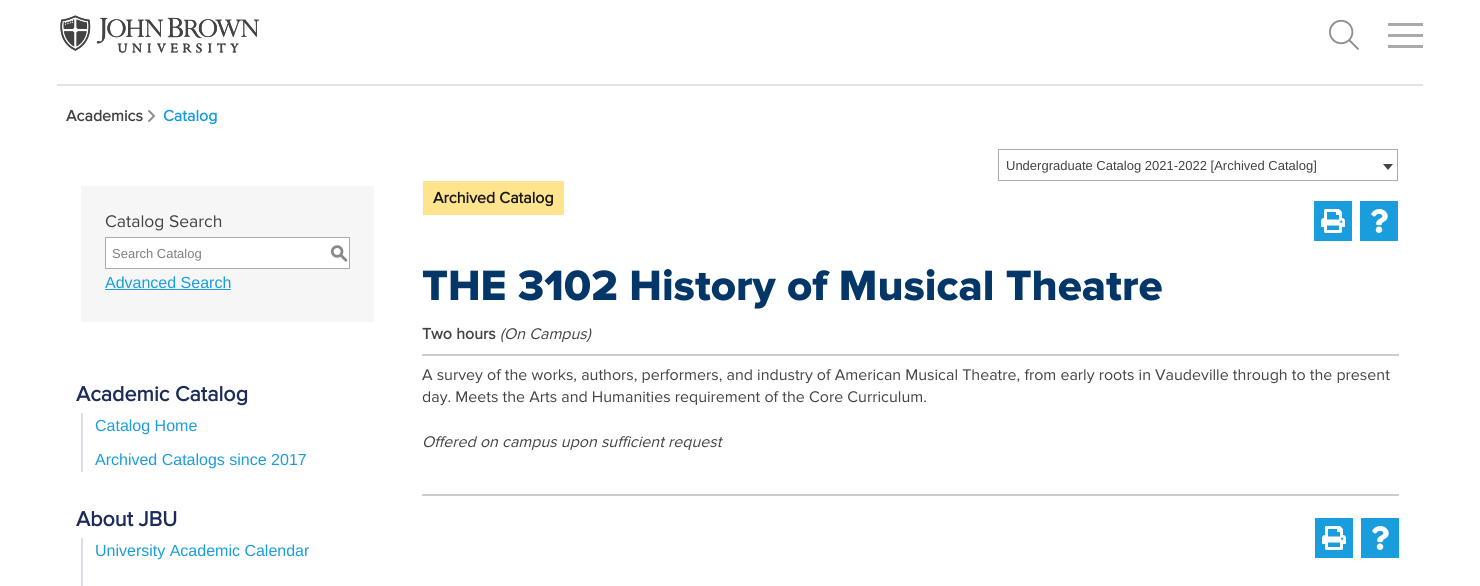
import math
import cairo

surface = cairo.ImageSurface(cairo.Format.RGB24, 1480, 586)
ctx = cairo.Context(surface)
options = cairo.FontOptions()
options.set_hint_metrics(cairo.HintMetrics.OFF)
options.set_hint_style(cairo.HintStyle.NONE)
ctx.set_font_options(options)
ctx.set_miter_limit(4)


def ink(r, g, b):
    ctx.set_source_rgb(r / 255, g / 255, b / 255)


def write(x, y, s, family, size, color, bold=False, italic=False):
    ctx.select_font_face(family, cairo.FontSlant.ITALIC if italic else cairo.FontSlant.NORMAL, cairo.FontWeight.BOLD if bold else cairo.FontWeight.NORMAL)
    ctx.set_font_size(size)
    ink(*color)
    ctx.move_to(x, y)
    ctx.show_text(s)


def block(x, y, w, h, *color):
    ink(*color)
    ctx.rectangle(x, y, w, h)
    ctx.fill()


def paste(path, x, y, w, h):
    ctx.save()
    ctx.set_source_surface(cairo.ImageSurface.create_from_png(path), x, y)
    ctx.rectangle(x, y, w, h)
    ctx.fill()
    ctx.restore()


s1 = dict(family="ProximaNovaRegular", size=16, color=(67, 67, 67), bold=True)
s2 = dict(family="ProximaNovaRegular", size=16, color=(25, 157, 220), bold=True)
s3 = dict(family="Liberation Sans", size=13, color=(67, 67, 67))
s4 = dict(family="ProximaNovaRegular", size=17.5, color=(67, 67, 67))
s5 = dict(family="Liberation Sans", size=13, color=(128, 128, 128))
s6 = dict(family="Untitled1 Medium", size=18, color=(136, 136, 136))
s7 = dict(family="Liberation Sans", size=16, color=(25, 157, 220))
s8 = dict(family="ProximaNovaRegular", size=21.5, color=(28, 43, 89), bold=True)
s9 = dict(family="ProximaNovaRegular", size=16, color=(21, 21, 21), bold=True)
s10 = dict(family="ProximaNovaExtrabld", size=44, color=(4, 55, 104))
s11 = dict(family="ProximaNovaRegular", size=16, color=(67, 67, 67), italic=True)
s12 = dict(family="ProximaNovaRegular", size=16, color=(67, 67, 67))

ink(255, 255, 255)
ctx.paint()
paste("pic1.png", 60, 15, 199, 38)
paste("pic2.png", 1329, 19, 30, 31)
block(1388, 23, 35, 3, 170, 170, 170)
block(1388, 34, 35, 3, 170, 170, 170)
block(1388, 45, 35, 3, 170, 170, 170)
block(57, 84, 1366, 2, 227, 227, 227)
write(66, 121, "Academics", **s1)
paste("pic3.png", 148, 110, 7, 12)
write(163, 121, "Catalog", **s2)
ctx.rectangle(998.5, 149.5, 399, 31)
ink(170, 170, 170)
ctx.set_line_width(1)
ctx.stroke()
write(1006, 170, "Undergraduate Catalog 2021-2022 [Archived Catalog]", **s3)
ink(68, 68, 68)
ctx.new_path()
ctx.move_to(1383, 164)
ctx.line_to(1393, 164)
ctx.line_to(1388, 170)
ctx.close_path()
ctx.fill()
block(81, 186, 293, 136, 246, 246, 246)
write(105, 227, "Catalog Search", **s4)
ink(255, 255, 255)
ctx.rectangle(105.5, 237.5, 244, 31)
ctx.fill_preserve()
ink(170, 170, 170)
ctx.stroke()
write(112, 258, "Search Catalog", **s5)
write(330, 259, "S", **s6)
write(105, 288, "Advanced Search", **s7)
block(105, 289, 126, 1, 25, 157, 220)
block(81, 413, 2, 59, 222, 222, 230)
write(76, 401, "Academic Catalog", **s8)
write(95, 431, "Catalog Home", **s7)
write(95, 465, "Archived Catalogs since 2017", **s7)
block(81, 538, 2, 48, 222, 222, 230)
write(76, 526, "About JBU", **s8)
write(95, 556, "University Academic Calendar", **s7)
block(423, 181, 141, 34, 255, 228, 142)
write(433, 203, "Archived Catalog", **s9)
block(1314, 201, 38, 40, 25, 157, 220)
paste("pic4.png", 1321, 209, 24, 24)
block(1360, 201, 38, 40, 25, 157, 220)
paste("pic5.png", 1371, 209, 17, 24)
write(422, 300, "THE 3102 History of Musical Theatre", **s10)
write(422, 339, "Two hours", **s1)
write(500, 339, "(On Campus)", **s11)
block(422, 354, 977, 2, 204, 204, 204)
write(422, 380, "A survey of the works, authors, performers, and industry of American Musical Theatre, from early roots in Vaudeville through to the present", **s12)
write(422, 402, "day. Meets the Arts and Humanities requirement of the Core Curriculum.", **s12)
write(422, 447, "Offered on campus upon sufficient request", **s11)
block(422, 494, 977, 2, 204, 204, 204)
block(1315, 518, 38, 40, 25, 157, 220)
paste("pic4.png", 1322, 526, 24, 24)
block(1361, 518, 38, 40, 25, 157, 220)
paste("pic5.png", 1372, 526, 17, 24)
surface.write_to_png("screenshot.png")
